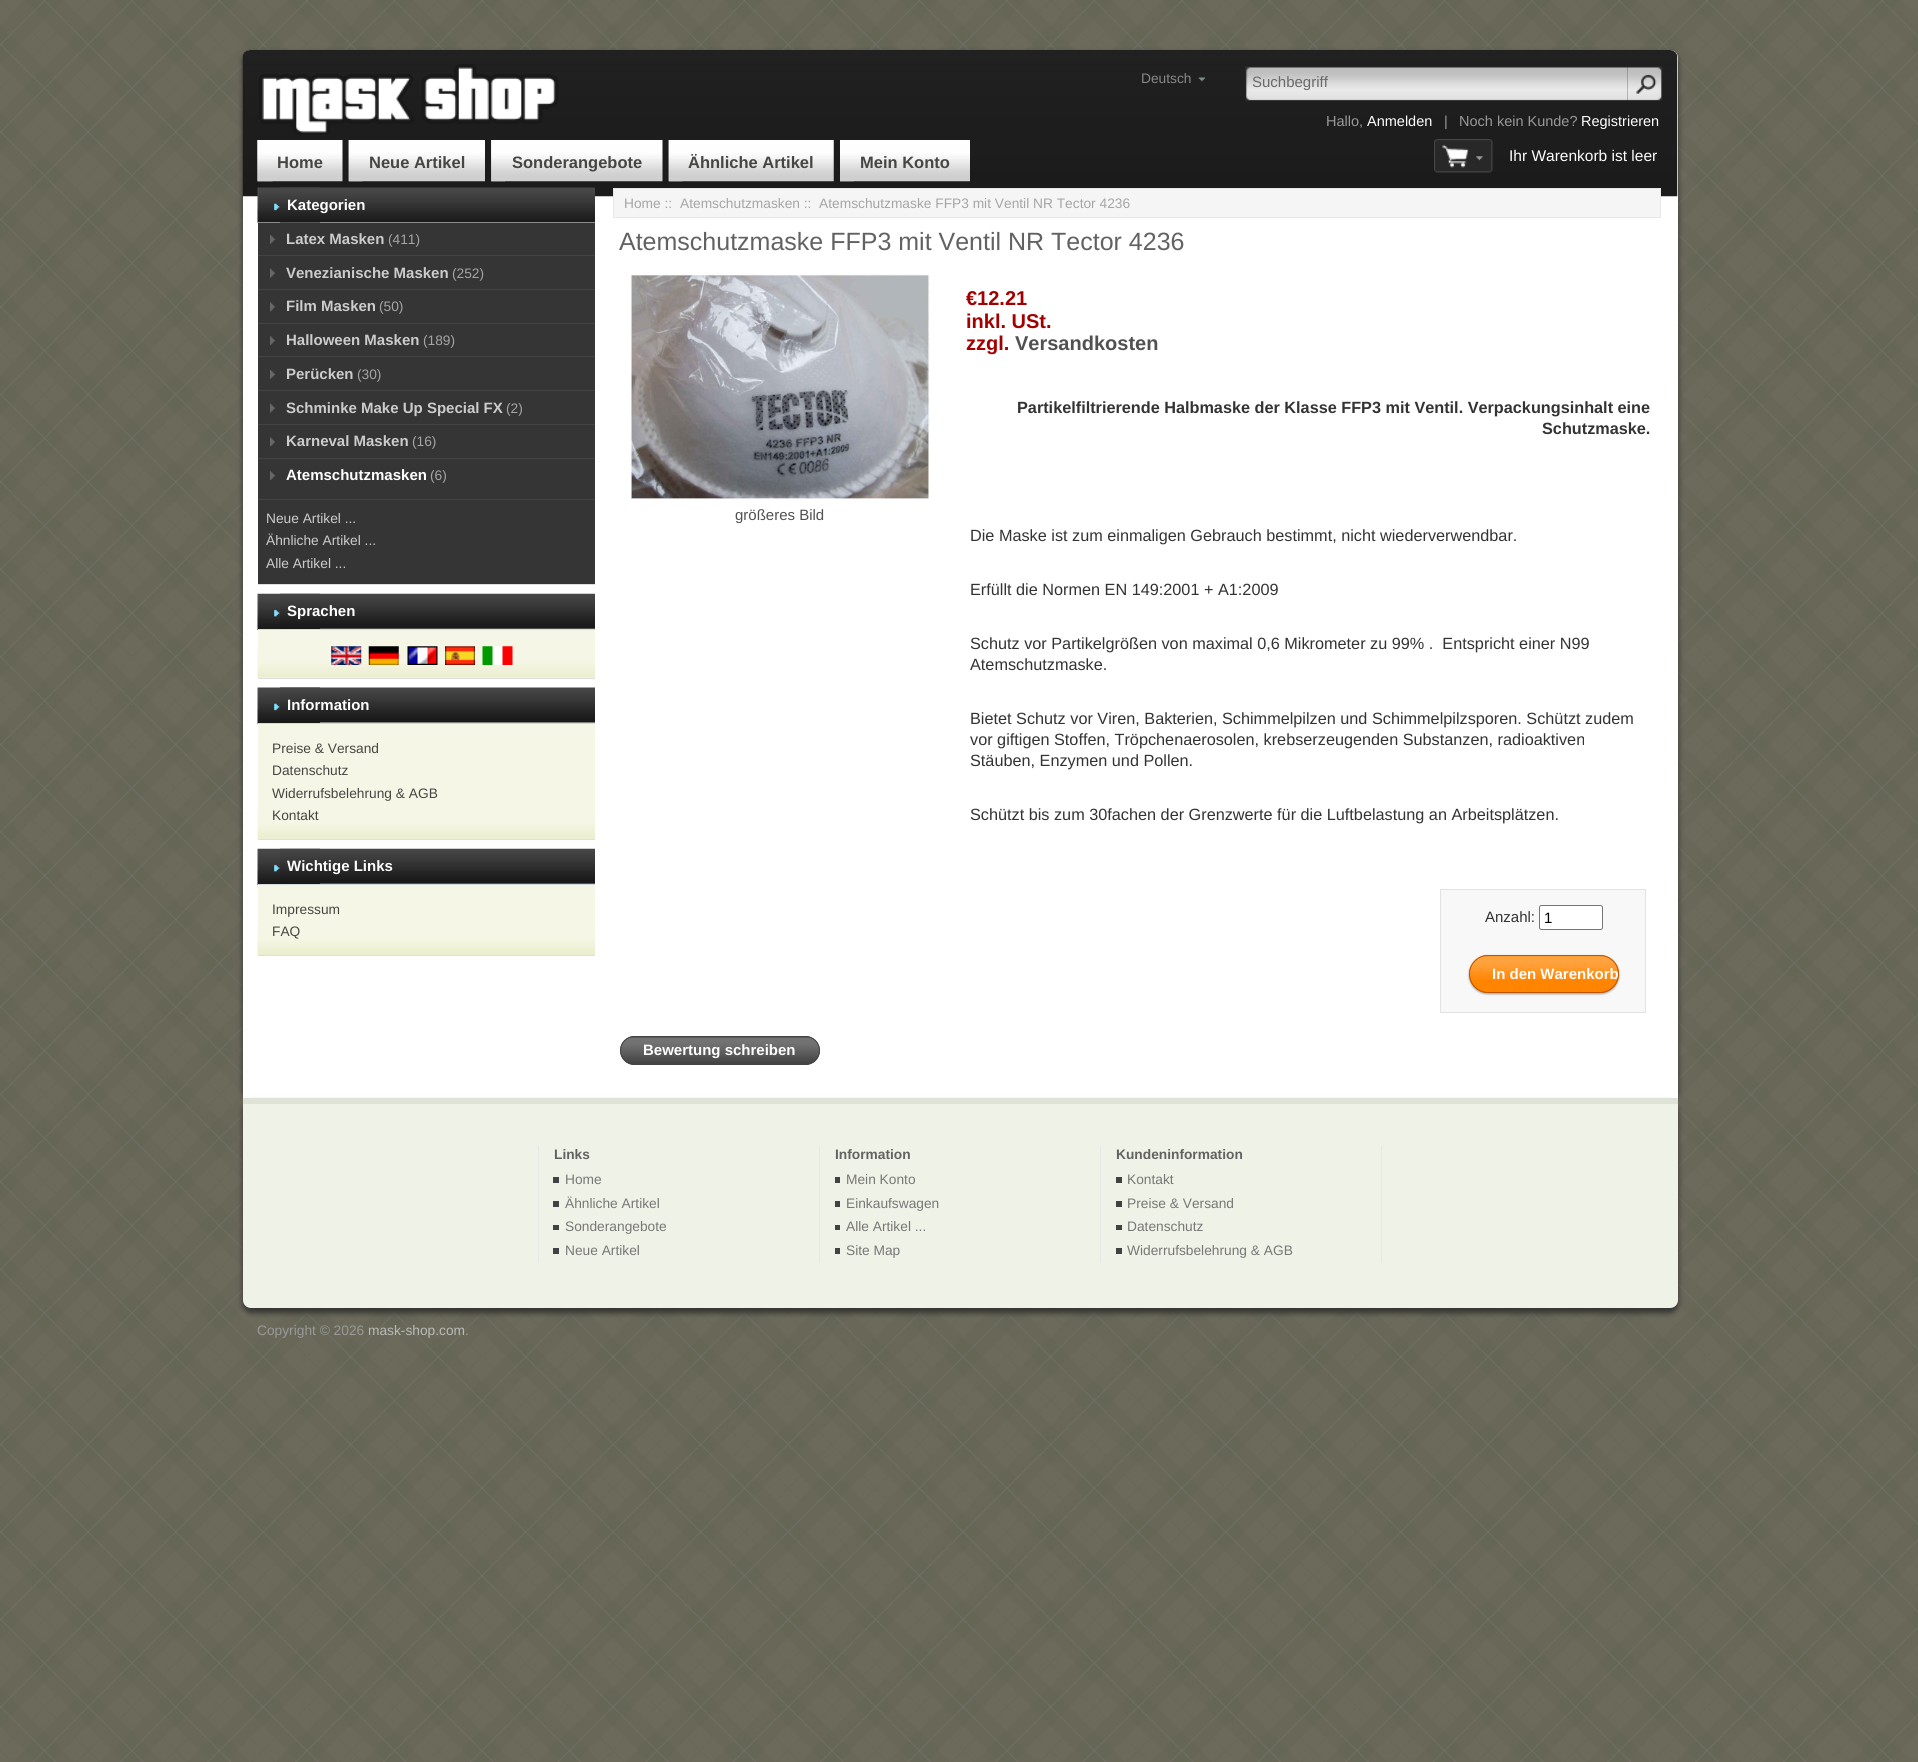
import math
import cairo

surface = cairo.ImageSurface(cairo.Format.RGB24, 1918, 1762)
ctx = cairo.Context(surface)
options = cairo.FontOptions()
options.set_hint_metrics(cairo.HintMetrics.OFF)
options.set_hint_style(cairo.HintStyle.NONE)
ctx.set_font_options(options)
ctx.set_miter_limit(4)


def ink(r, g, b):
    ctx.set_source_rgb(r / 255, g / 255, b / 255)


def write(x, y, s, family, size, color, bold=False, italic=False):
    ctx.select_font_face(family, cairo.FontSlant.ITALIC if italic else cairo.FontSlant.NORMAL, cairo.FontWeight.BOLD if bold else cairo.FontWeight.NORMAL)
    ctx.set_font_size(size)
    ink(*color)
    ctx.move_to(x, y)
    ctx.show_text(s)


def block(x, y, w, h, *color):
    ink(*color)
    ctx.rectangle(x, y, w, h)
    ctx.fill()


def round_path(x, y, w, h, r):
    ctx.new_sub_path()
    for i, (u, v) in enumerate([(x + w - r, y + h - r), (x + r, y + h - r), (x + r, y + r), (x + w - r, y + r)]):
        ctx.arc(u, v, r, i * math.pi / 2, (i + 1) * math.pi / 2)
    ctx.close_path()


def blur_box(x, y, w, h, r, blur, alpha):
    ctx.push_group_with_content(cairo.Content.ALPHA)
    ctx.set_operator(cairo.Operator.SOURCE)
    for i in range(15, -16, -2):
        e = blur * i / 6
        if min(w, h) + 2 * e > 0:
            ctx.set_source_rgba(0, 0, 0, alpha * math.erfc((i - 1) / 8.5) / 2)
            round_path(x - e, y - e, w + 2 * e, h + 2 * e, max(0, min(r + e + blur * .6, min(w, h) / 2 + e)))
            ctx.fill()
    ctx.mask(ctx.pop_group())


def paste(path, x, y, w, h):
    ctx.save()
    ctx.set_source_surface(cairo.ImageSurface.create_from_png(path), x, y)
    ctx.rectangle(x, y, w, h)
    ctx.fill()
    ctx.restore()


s1 = dict(family="Liberation Sans", size=13.75, color=(136, 136, 136))
s2 = dict(family="Liberation Sans", size=15, color=(105, 105, 105))
s3 = dict(family="Liberation Sans", size=14.5, color=(153, 153, 153))
s4 = dict(family="Liberation Sans", size=14.5, color=(255, 255, 255))
s5 = dict(family="Liberation Sans", size=16.5, color=(70, 71, 67), bold=True)
s6 = dict(family="Liberation Sans", size=15.5, color=(255, 255, 255))
s7 = dict(family="Liberation Sans", size=15, color=(255, 255, 255), bold=True)
s8 = dict(family="Liberation Sans", size=15, color=(204, 204, 204), bold=True)
s9 = dict(family="Liberation Sans", size=13.75, color=(165, 165, 165))
s10 = dict(family="Liberation Sans", size=13.75, color=(204, 204, 204))
s11 = dict(family="Liberation Sans", size=13.75, color=(70, 71, 67))
s12 = dict(family="Liberation Sans", size=25, color=(98, 98, 98))
s13 = dict(family="Liberation Sans", size=15, color=(82, 81, 81))
s14 = dict(family="Liberation Sans", size=20, color=(163, 1, 1), bold=True)
s15 = dict(family="Liberation Sans", size=20, color=(82, 81, 81), bold=True)
s16 = dict(family="Liberation Sans", size=16.25, color=(51, 51, 51), bold=True)
s17 = dict(family="Liberation Sans", size=16.25, color=(51, 51, 51))
s18 = dict(family="Liberation Sans", size=15, color=(51, 51, 51))
s19 = dict(family="Liberation Sans", size=15, color=(0, 0, 0))
s20 = dict(family="Liberation Sans", size=13.75, color=(98, 98, 98), bold=True)
s21 = dict(family="Liberation Sans", size=13.75, color=(119, 119, 119))
s22 = dict(family="Liberation Sans", size=13.75, color=(153, 153, 153))
s23 = dict(family="Liberation Sans", size=13.75, color=(187, 187, 187))

ink(255, 255, 255)
ctx.paint()
paste("pic1.png", 0, 0, 1918, 1762)
ink(51, 51, 51)
blur_box(243, 53, 1435, 1047, 8, 3, 1)
ink(255, 255, 255)
ctx.new_path()
ctx.move_to(251, 50)
ctx.line_to(1670, 50)
ctx.curve_to(1674.5, 50, 1678, 53.5, 1678, 58)
ctx.line_to(1678, 1098)
ctx.line_to(243, 1098)
ctx.line_to(243, 58)
ctx.curve_to(243, 53.5, 246.5, 50, 251, 50)
ctx.close_path()
ctx.fill()
paste("pic2.png", 242, 50, 1436, 147)
paste("pic3.png", 259, 64, 300, 71)
write(1141, 83, "Deutsch", **s1)
paste("pic4.png", 1198, 77, 7, 5)
paste("pic5.png", 1245, 66, 383, 35)
write(1252, 87, "Suchbegriff", **s2)
paste("pic6.png", 1627, 66, 36, 35)
write(1326, 126, "Hallo,", **s3)
write(1367, 126, "Anmelden", **s4)
write(1444, 126, "|", **s3)
write(1459, 126, "Noch kein Kunde?", **s3)
write(1581, 126, "Registrieren", **s4)
paste("pic7.png", 257, 140, 16, 42)
paste("pic8.png", 257, 140, 86, 42)
write(277, 168, "Home", **s5)
paste("pic9.png", 348, 140, 15, 42)
paste("pic10.png", 348, 140, 137, 42)
write(369, 168, "Neue Artikel", **s5)
paste("pic11.png", 491, 140, 14, 42)
paste("pic12.png", 491, 140, 172, 42)
write(512, 168, "Sonderangebote", **s5)
paste("pic9.png", 668, 140, 15, 42)
paste("pic13.png", 668, 140, 166, 42)
write(688, 168, "Ähnliche Artikel", **s5)
paste("pic14.png", 840, 181, 14, 1)
paste("pic15.png", 840, 140, 130, 42)
write(860, 168, "Mein Konto", **s5)
paste("pic16.png", 1434, 139, 59, 34)
write(1509, 161, "Ihr Warenkorb ist leer", **s6)
paste("pic17.png", 257, 187, 63, 36)
paste("pic18.png", 280, 187, 315, 36)
write(287, 210, "Kategorien", **s7)
block(258, 223, 337, 361, 53, 53, 53)
block(258, 584, 337, 1, 222, 222, 222)
paste("pic19.png", 270, 235, 6, 9)
write(286, 244, "Latex Masken", **s8)
write(388, 244, "(411)", **s9)
block(258, 255, 337, 1, 68, 68, 68)
paste("pic20.png", 270, 268, 6, 10)
write(286, 278, "Venezianische Masken", **s8)
write(452, 278, "(252)", **s9)
block(258, 289, 337, 1, 68, 68, 68)
paste("pic21.png", 270, 302, 5, 10)
write(286, 311, "Film Masken", **s8)
write(379, 311, "(50)", **s9)
block(258, 323, 337, 1, 68, 68, 68)
paste("pic22.png", 270, 336, 6, 9)
write(286, 345, "Halloween Masken", **s8)
write(423, 345, "(189)", **s9)
block(258, 356, 337, 1, 68, 68, 68)
paste("pic19.png", 270, 370, 6, 9)
write(286, 379, "Perücken", **s8)
write(357, 379, "(30)", **s9)
block(258, 390, 337, 1, 68, 68, 68)
paste("pic20.png", 270, 403, 6, 10)
write(286, 413, "Schminke Make Up Special FX", **s8)
write(506, 413, "(2)", **s9)
block(258, 424, 337, 1, 68, 68, 68)
paste("pic21.png", 270, 437, 5, 10)
write(286, 446, "Karneval Masken", **s8)
write(412, 446, "(16)", **s9)
block(258, 458, 337, 1, 68, 68, 68)
paste("pic22.png", 270, 471, 6, 9)
write(286, 480, "Atemschutzmasken", **s7)
write(430, 480, "(6)", **s9)
block(258, 499, 337, 1, 68, 68, 68)
write(266, 523, "Neue Artikel ...", **s10)
write(266, 545, "Ähnliche Artikel ...", **s10)
write(266, 568, "Alle Artikel ...", **s10)
paste("pic23.png", 257, 593, 63, 37)
block(258, 629, 337, 1, 214, 220, 221)
paste("pic24.png", 280, 593, 315, 36)
write(287, 616, "Sprachen", **s7)
block(258, 630, 337, 48, 245, 246, 229)
paste("pic25.png", 257, 649, 338, 29)
block(258, 678, 337, 1, 222, 222, 222)
paste("pic26.png", 331, 646, 31, 19)
paste("pic27.png", 368, 646, 31, 19)
paste("pic28.png", 407, 646, 31, 19)
paste("pic29.png", 445, 646, 30, 19)
paste("pic30.png", 482, 646, 31, 19)
block(320, 722, 275, 1, 229, 233, 233)
paste("pic31.png", 257, 687, 63, 37)
block(258, 723, 337, 1, 214, 220, 221)
paste("pic32.png", 280, 687, 315, 36)
write(287, 710, "Information", **s7)
block(258, 724, 337, 115, 245, 246, 229)
paste("pic33.png", 257, 810, 338, 29)
block(258, 839, 337, 1, 222, 222, 222)
write(272, 753, "Preise & Versand", **s11)
write(272, 775, "Datenschutz", **s11)
write(272, 798, "Widerrufsbelehrung & AGB", **s11)
write(272, 820, "Kontakt", **s11)
paste("pic23.png", 257, 848, 63, 37)
block(258, 884, 337, 1, 214, 220, 221)
paste("pic24.png", 280, 848, 315, 36)
write(287, 871, "Wichtige Links", **s7)
block(258, 885, 337, 42, 245, 246, 229)
paste("pic34.png", 257, 926, 338, 29)
block(258, 955, 337, 1, 222, 222, 222)
write(272, 914, "Impressum", **s11)
write(272, 936, "FAQ", **s11)
ink(245, 245, 245)
ctx.rectangle(613.5, 188.5, 1047, 29)
ctx.fill_preserve()
ink(231, 231, 231)
ctx.set_line_width(1)
ctx.stroke()
write(624, 208, "Home ::", **s9)
write(680, 208, "Atemschutzmasken ::  Atemschutzmaske FFP3 mit Ventil NR Tector 4236", **s9)
write(619, 250, "Atemschutzmaske FFP3 mit Ventil NR Tector 4236", **s12)
paste("pic35.png", 630, 274, 300, 226)
write(735, 520, "größeres Bild", **s13)
write(966, 305, "€12.21", **s14)
write(966, 328, "inkl. USt.", **s14)
write(966, 350, "zzgl.", **s14)
write(1015, 350, "Versandkosten", **s15)
write(1017, 413, "Partikelfiltrierende Halbmaske der Klasse FFP3 mit Ventil. Verpackungsinhalt eine", **s16)
write(1542, 434, "Schutzmaske.", **s16)
write(970, 541, "Die Maske ist zum einmaligen Gebrauch bestimmt, nicht wiederverwendbar.", **s17)
write(970, 595, "Erfüllt die Normen EN 149:2001 + A1:2009", **s17)
write(970, 649, "Schutz vor Partikelgrößen von maximal 0,6 Mikrometer zu 99% .  Entspricht einer N99", **s17)
write(970, 670, "Atemschutzmaske.", **s17)
write(970, 724, "Bietet Schutz vor Viren, Bakterien, Schimmelpilzen und Schimmelpilzsporen. Schützt zudem", **s17)
write(970, 745, "vor giftigen Stoffen, Tröpchenaerosolen, krebserzeugenden Substanzen, radioaktiven", **s17)
write(970, 766, "Stäuben, Enzymen und Pollen.", **s17)
write(970, 820, "Schützt bis zum 30fachen der Grenzwerte für die Luftbelastung an Arbeitsplätzen.", **s17)
ink(248, 248, 248)
ctx.rectangle(1440.5, 889.5, 205, 123)
ctx.fill_preserve()
ink(226, 226, 226)
ctx.stroke()
write(1485, 922, "Anzahl:", **s18)
ink(255, 255, 255)
round_path(1539.5, 905.5, 63, 24, 2)
ctx.fill_preserve()
ink(118, 118, 118)
ctx.stroke()
write(1544, 923, "1", **s19)
ink(153, 153, 153)
blur_box(1469, 956, 150, 38, 19, 1, 1)
ink(255, 132, 0)
round_path(1469, 955, 150, 38, 19)
ctx.fill()
paste("pic36.png", 1469, 956, 150, 24)
round_path(1469.5, 955.5, 149, 37, 18.5)
ink(187, 85, 0)
ctx.stroke()
ctx.save()
round_path(1470, 956, 148, 35, 17.5)
ctx.clip()
write(1492, 979, "In den Warenkorb", **s7)
ctx.restore()
ink(68, 68, 68)
round_path(620, 1036, 200, 29, 14.5)
ctx.fill()
paste("pic37.png", 620, 1037, 200, 25)
round_path(620.5, 1036.5, 199, 28, 14)
ctx.stroke()
write(643, 1055, "Bewertung schreiben", **s7)
ink(51, 51, 51)
blur_box(243, 1103, 1435, 210, 8, 3, 1)
ink(239, 242, 230)
ctx.new_path()
ctx.move_to(243, 1098)
ctx.line_to(1678, 1098)
ctx.line_to(1678, 1300)
ctx.curve_to(1678, 1304.5, 1674.5, 1308, 1670, 1308)
ctx.line_to(251, 1308)
ctx.curve_to(246.5, 1308, 243, 1304.5, 243, 1300)
ctx.close_path()
ctx.fill()
block(243, 1098, 1435, 6, 223, 226, 214)
block(538, 1146, 1, 117, 231, 231, 231)
write(554, 1159, "Links", **s20)
block(819, 1146, 1, 117, 231, 231, 231)
write(835, 1159, "Information", **s20)
block(1100, 1146, 1, 117, 231, 231, 231)
write(1116, 1159, "Kundeninformation", **s20)
block(1381, 1146, 1, 117, 231, 231, 231)
block(553, 1177, 6, 6, 65, 67, 67)
write(565, 1184, "Home", **s21)
block(553, 1201, 6, 6, 65, 67, 67)
write(565, 1208, "Ähnliche Artikel", **s21)
block(553, 1225, 6, 5, 65, 67, 67)
write(565, 1231, "Sonderangebote", **s21)
block(553, 1248, 6, 6, 65, 67, 67)
write(565, 1255, "Neue Artikel", **s21)
block(835, 1177, 5, 6, 65, 67, 67)
write(846, 1184, "Mein Konto", **s21)
block(835, 1201, 5, 6, 65, 67, 67)
write(846, 1208, "Einkaufswagen", **s21)
block(835, 1225, 5, 5, 65, 67, 67)
write(846, 1231, "Alle Artikel ...", **s21)
block(835, 1248, 5, 6, 65, 67, 67)
write(846, 1255, "Site Map", **s21)
block(1116, 1177, 6, 6, 65, 67, 67)
write(1127, 1184, "Kontakt", **s21)
block(1116, 1201, 6, 6, 65, 67, 67)
write(1127, 1208, "Preise & Versand", **s21)
block(1116, 1225, 6, 5, 65, 67, 67)
write(1127, 1231, "Datenschutz", **s21)
block(1116, 1248, 6, 6, 65, 67, 67)
write(1127, 1255, "Widerrufsbelehrung & AGB", **s21)
write(257, 1335, "Copyright © 2026", **s22)
write(368, 1335, "mask-shop.com", **s23)
write(465, 1335, ".", **s22)
surface.write_to_png("screenshot.png")
